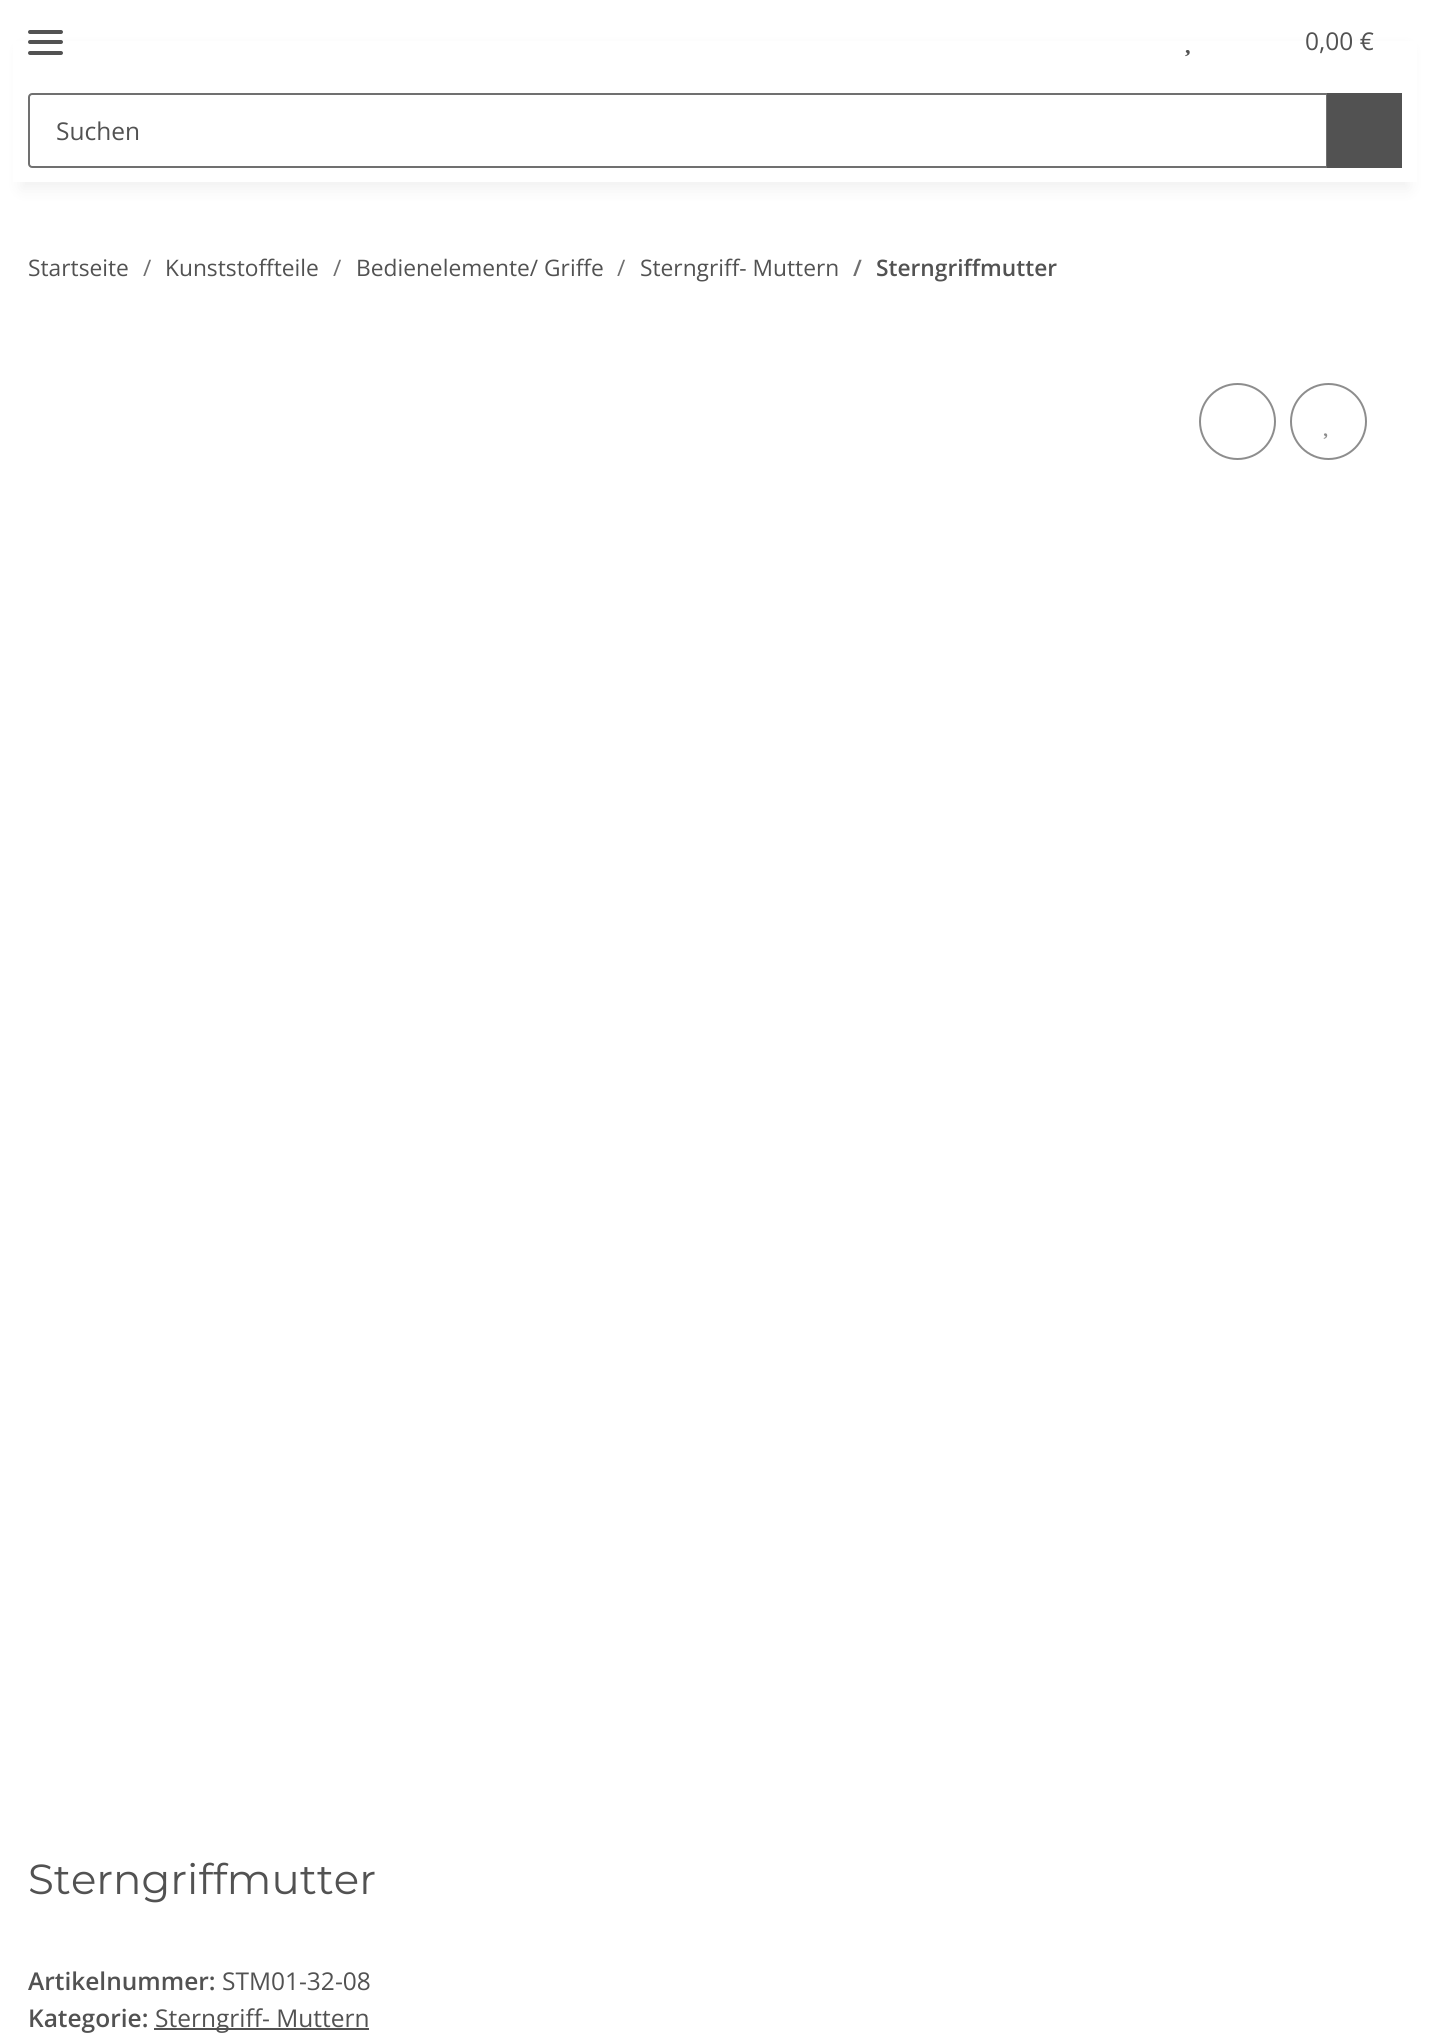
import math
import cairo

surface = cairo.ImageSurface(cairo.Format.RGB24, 1429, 2042)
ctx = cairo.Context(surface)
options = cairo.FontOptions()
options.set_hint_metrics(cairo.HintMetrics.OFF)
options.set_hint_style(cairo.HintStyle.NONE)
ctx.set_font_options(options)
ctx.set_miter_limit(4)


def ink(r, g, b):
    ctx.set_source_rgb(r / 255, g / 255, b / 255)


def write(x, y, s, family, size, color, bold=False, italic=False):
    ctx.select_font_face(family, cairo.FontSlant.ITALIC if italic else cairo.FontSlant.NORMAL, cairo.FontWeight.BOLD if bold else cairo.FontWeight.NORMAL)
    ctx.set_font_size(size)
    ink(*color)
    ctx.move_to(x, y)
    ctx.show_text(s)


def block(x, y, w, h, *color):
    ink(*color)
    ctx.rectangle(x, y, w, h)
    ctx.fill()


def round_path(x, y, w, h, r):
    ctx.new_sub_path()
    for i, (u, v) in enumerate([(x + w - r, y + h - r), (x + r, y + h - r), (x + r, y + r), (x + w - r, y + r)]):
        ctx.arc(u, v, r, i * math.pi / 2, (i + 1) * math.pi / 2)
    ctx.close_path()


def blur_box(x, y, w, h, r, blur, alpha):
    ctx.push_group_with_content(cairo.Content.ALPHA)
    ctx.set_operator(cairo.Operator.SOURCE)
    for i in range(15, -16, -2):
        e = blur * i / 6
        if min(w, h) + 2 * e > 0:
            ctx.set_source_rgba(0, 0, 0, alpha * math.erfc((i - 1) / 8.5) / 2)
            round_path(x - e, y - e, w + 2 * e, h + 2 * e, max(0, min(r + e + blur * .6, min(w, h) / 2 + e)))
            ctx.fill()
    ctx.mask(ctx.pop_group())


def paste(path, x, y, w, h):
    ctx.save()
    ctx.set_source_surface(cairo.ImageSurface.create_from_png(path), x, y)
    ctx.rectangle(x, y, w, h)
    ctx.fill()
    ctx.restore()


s1 = dict(family="Open Sans", size=24.5, color=(82, 82, 82))
s2 = dict(family="Open Sans", size=22.75, color=(82, 82, 82))
s3 = dict(family="Open Sans", size=22.75, color=(112, 112, 112))
s4 = dict(family="Open Sans SemiBold", size=22.75, color=(112, 112, 112))
s5 = dict(family="Open Sans SemiBold", size=22.75, color=(82, 82, 82))
s6 = dict(family="Montserrat", size=42, color=(82, 82, 82))
s7 = dict(family="Open Sans SemiBold", size=24.5, color=(82, 82, 82))

ink(255, 255, 255)
ctx.paint()
ink(0, 0, 0)
blur_box(21, 49, 1388, 140, 0, 8, 0.06)
block(13, 41, 1404, 141, 255, 255, 255)
ink(82, 82, 82)
round_path(28, 40, 35, 4, 2)
ctx.fill()
round_path(28, 30, 35, 4, 2)
ctx.fill()
round_path(28, 51, 35, 4, 2)
ctx.fill()
paste("pic1.png", 1185, 50, 5, 7)
write(1305, 50, "0,00 €", **s1)
ctx.new_path()
ctx.move_to(32, 94)
ctx.line_to(1327, 94)
ctx.line_to(1327, 167)
ctx.line_to(32, 167)
ctx.curve_to(30.5, 167, 29, 165.5, 29, 164)
ctx.line_to(29, 97)
ctx.curve_to(29, 95.5, 30.5, 94, 32, 94)
ctx.close_path()
ink(112, 112, 112)
ctx.stroke()
write(56, 140, "Suchen", **s1)
block(1327, 93, 75, 75, 82, 82, 82)
write(28, 276, "Startseite", **s2)
write(143, 276, "/", **s3)
write(165, 276, "Kunststoffteile", **s2)
write(333, 276, "/", **s3)
write(356, 276, "Bedienelemente/ Griffe", **s2)
write(617, 276, "/", **s3)
write(640, 276, "Sterngriff- Muttern", **s2)
write(853, 276, "/", **s4)
write(876, 276, "Sterngriffmutter", **s5)
ctx.new_path()
ctx.arc(1237.5, 421.5, 37.5, 0, 2 * math.pi)
ink(141, 141, 141)
ctx.stroke()
ctx.arc(1328.5, 421.5, 37.5, 0, 2 * math.pi)
ctx.stroke()
paste("pic2.png", 1323, 433, 5, 6)
write(28, 1894, "Sterngriffmutter", **s6)
write(28, 1990, "Artikelnummer:", **s7)
write(222, 1990, "STM01-32-08", **s1)
write(28, 2027, "Kategorie:", **s7)
block(154, 2028, 215, 2, 82, 82, 82)
write(155, 2027, "Sterngriff- Muttern", **s1)
surface.write_to_png("screenshot.png")
